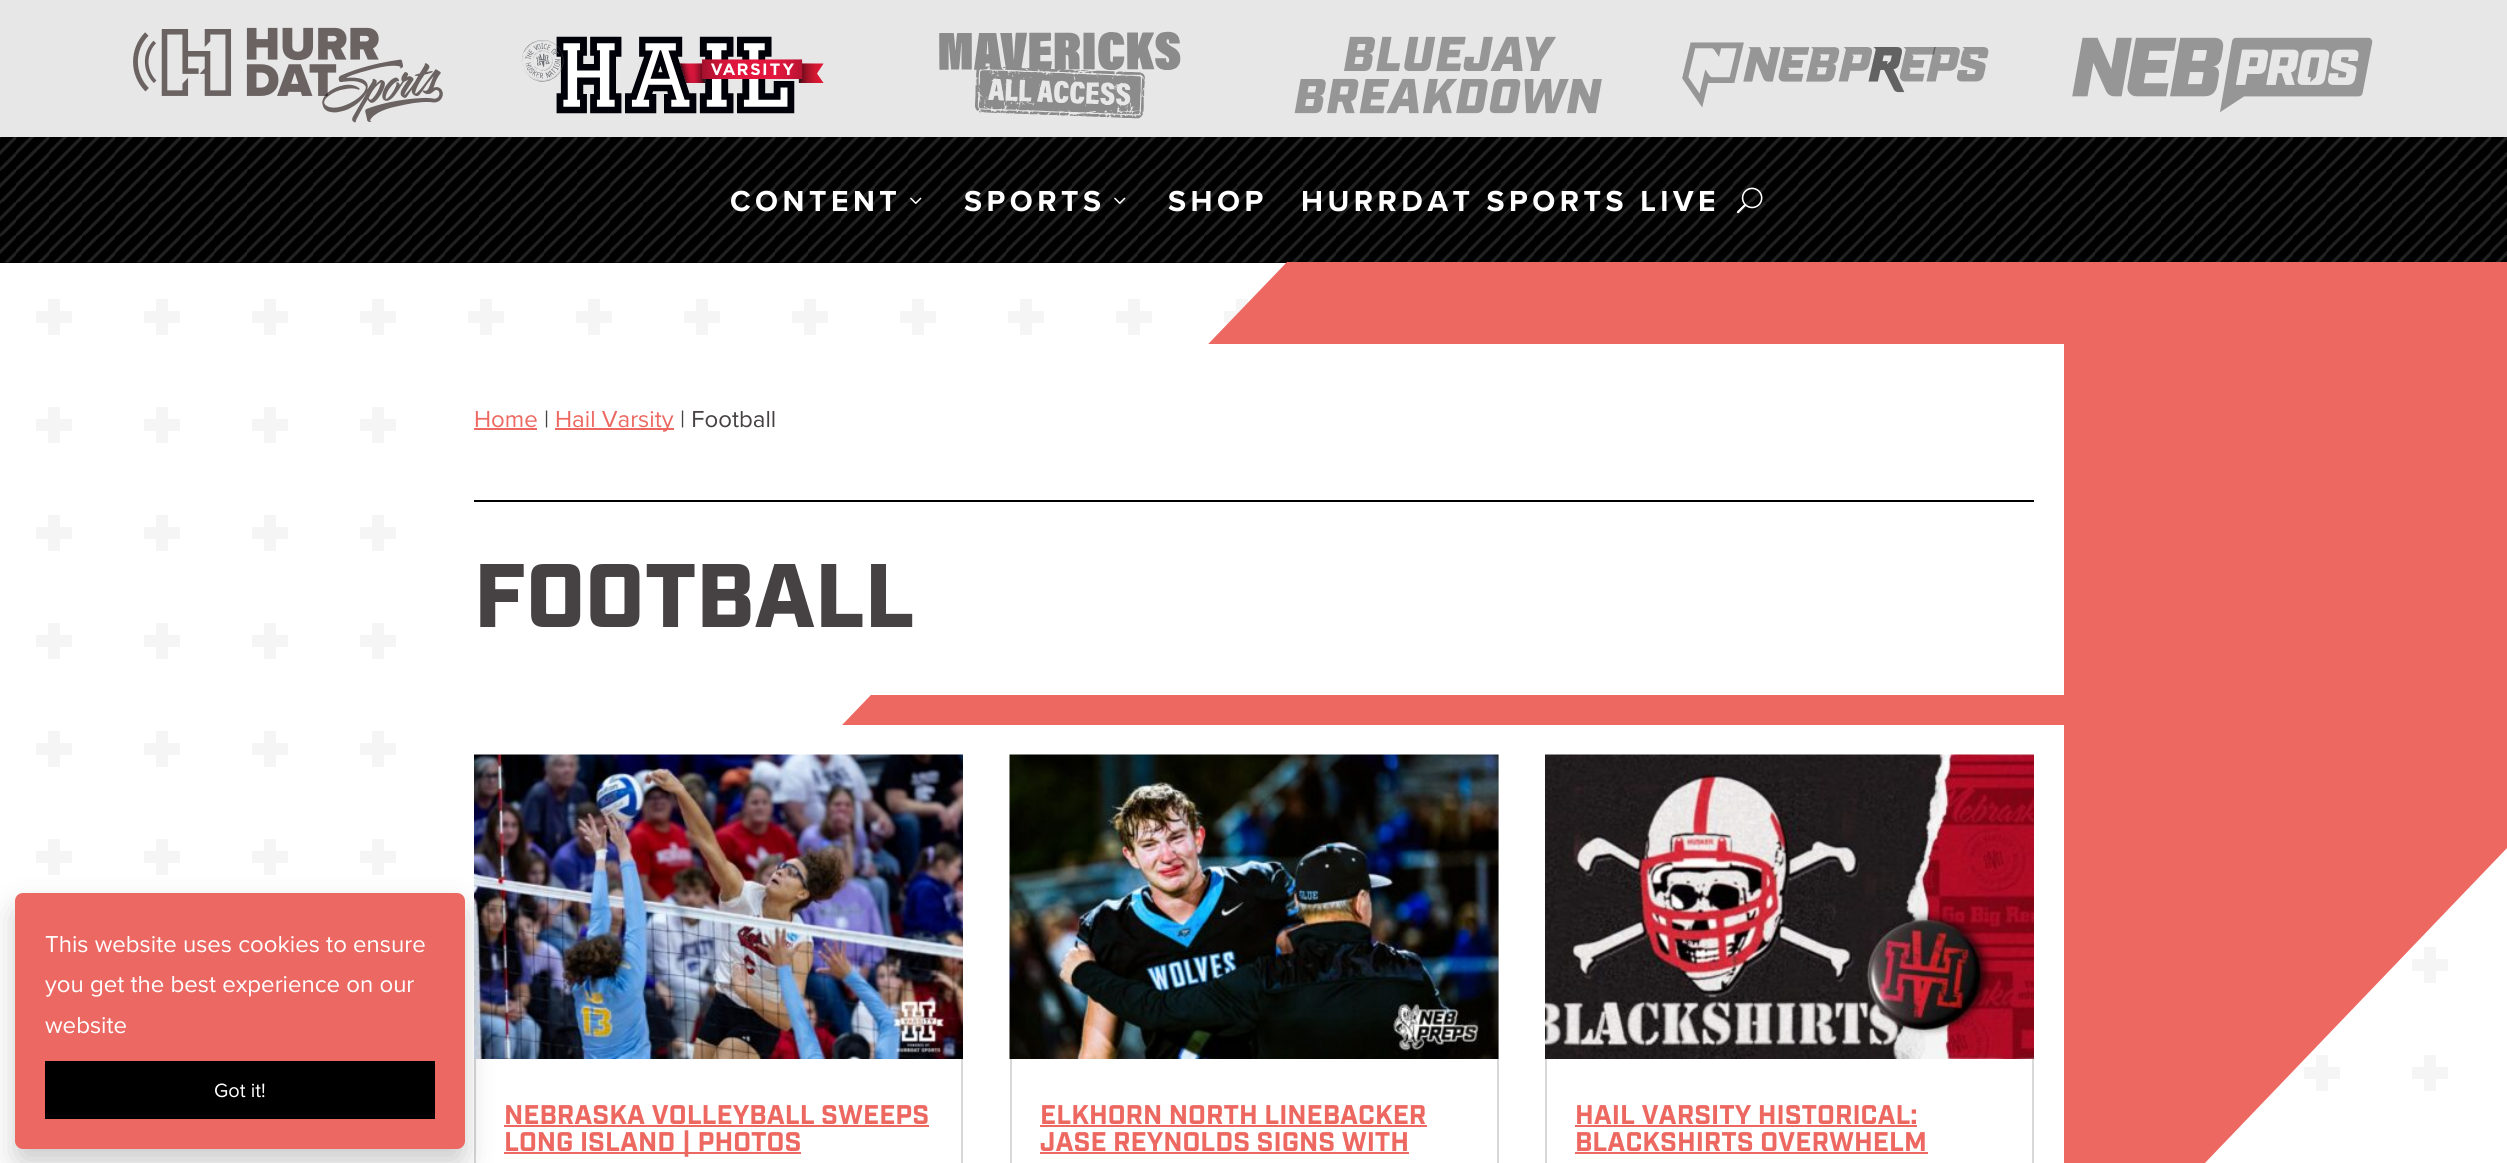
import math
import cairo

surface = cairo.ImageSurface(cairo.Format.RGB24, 2507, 1163)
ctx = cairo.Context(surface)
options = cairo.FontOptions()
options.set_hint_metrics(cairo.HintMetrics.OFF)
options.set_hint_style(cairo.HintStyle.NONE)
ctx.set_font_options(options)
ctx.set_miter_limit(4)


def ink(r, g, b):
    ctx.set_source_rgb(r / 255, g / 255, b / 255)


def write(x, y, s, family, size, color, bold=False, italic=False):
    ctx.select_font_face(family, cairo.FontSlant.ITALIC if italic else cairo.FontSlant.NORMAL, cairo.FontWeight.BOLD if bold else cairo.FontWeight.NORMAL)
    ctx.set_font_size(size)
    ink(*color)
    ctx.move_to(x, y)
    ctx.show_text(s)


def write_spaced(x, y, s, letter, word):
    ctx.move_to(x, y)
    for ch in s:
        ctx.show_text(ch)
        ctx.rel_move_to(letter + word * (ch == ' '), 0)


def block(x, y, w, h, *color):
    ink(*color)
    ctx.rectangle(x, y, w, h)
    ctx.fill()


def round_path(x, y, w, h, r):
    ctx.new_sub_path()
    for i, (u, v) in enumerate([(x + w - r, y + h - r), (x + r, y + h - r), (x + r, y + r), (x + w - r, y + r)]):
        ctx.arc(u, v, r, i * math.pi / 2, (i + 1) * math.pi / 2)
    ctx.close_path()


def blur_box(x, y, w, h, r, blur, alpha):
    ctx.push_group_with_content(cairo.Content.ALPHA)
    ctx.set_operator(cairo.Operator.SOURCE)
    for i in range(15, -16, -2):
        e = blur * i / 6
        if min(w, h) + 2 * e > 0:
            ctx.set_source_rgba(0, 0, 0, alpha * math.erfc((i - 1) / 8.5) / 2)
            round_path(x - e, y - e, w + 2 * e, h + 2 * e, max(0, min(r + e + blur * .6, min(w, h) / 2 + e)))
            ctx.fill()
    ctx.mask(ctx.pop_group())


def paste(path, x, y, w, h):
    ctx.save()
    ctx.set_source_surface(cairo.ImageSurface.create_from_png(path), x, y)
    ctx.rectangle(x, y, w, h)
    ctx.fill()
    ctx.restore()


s1 = dict(family="Proxima Nova", size=24, color=(255, 255, 255))
s2 = dict(family="Proxima Nova", size=20, color=(255, 255, 255))
s3 = dict(family="Proxima Nova", size=24, color=(236, 104, 97))
s4 = dict(family="Proxima Nova", size=24, color=(70, 65, 66))
s5 = dict(family="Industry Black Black", size=90, color=(70, 65, 66))
s6 = dict(family="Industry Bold", size=27, color=(236, 104, 97), bold=True)

ink(255, 255, 255)
ctx.paint()
block(0, 0, 2507, 137, 232, 231, 231)
paste("pic1.png", 133, 27, 310, 96)
paste("pic2.png", 521, 36, 303, 78)
paste("pic3.png", 939, 31, 242, 88)
paste("pic4.png", 1294, 36, 308, 78)
paste("pic5.png", 1682, 42, 307, 66)
paste("pic6.png", 2072, 37, 301, 75)
block(0, 137, 2507, 126, 0, 0, 0)
paste("pic7.png", 0, 137, 2507, 126)
ctx.select_font_face("Proxima Nova", cairo.FontSlant.NORMAL, cairo.FontWeight.BOLD)
ctx.set_font_size(30)
ink(255, 255, 255)
write_spaced(730, 211, "CONTENT", 4.5, 0)
paste("pic8.png", 910, 197, 12, 7)
write_spaced(964, 211, "SPORTS", 4.5, 0)
paste("pic9.png", 1114, 197, 12, 7)
write_spaced(1168, 211, "SHOP", 4.5, 0)
write_spaced(1301, 211, "HURRDAT SPORTS LIVE", 4.5, 0)
paste("pic10.png", 1736, 187, 27, 27)
paste("pic11.png", 36, 299, 2412, 792)
ink(236, 104, 97)
ctx.new_path()
ctx.move_to(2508, 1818)
ctx.line_to(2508, 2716)
ctx.line_to(-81, 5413)
ctx.line_to(-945, 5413)
ctx.close_path()
ctx.move_to(1896, 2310)
ctx.line_to(1896, 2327)
ctx.line_to(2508, 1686)
ctx.line_to(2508, 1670)
ctx.close_path()
ctx.move_to(1287, 262)
ctx.line_to(449, 1134)
ctx.line_to(449, 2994)
ctx.line_to(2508, 847)
ctx.line_to(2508, 262)
ctx.close_path()
ctx.fill()
block(449, 725, 1615, 438, 255, 255, 255)
ctx.rectangle(475, 756, 487, 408)
ink(216, 216, 216)
ctx.stroke()
paste("pic12.png", 474, 754, 489, 305)
block(504, 1125, 425, 2, 236, 104, 97)
block(504, 1152, 297, 2, 236, 104, 97)
ink(0, 0, 0)
blur_box(15, 908, 450, 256, 8, 15, 0.2)
ink(236, 104, 98)
round_path(15, 893, 450, 256, 8)
ctx.fill()
write(45, 952, "This website uses cookies to ensure", **s1)
write(45, 992, "you get the best experience on our", **s1)
write(45, 1033, "website", **s1)
block(45, 1061, 390, 58, 0, 0, 0)
write(214, 1097, "Got it!", **s2)
block(468, 344, 1596, 351, 255, 255, 255)
write(474, 427, "Home", **s3)
block(474, 428, 63, 2, 236, 104, 97)
write(544, 427, "|", **s4)
block(555, 428, 119, 2, 236, 104, 97)
write(555, 427, "Hail Varsity", **s3)
write(680, 427, "| Football", **s4)
block(474, 500, 1560, 2, 0, 0, 0)
write(474, 627, "FOOTBALL", **s5)
write(504, 1124, "NEBRASKA VOLLEYBALL SWEEPS", **s6)
write(504, 1151, "LONG ISLAND | PHOTOS", **s6)
ctx.rectangle(1011, 756, 487, 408)
ink(216, 216, 216)
ctx.stroke()
paste("pic13.png", 1009, 754, 490, 305)
write(1040, 1124, "ELKHORN NORTH LINEBACKER", **s6)
block(1040, 1125, 387, 2, 236, 104, 97)
write(1040, 1151, "JASE REYNOLDS SIGNS WITH", **s6)
block(1040, 1152, 369, 2, 236, 104, 97)
ctx.rectangle(1546, 756, 487, 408)
ink(216, 216, 216)
ctx.stroke()
paste("pic14.png", 1545, 754, 489, 305)
write(1575, 1124, "HAIL VARSITY HISTORICAL:", **s6)
block(1575, 1125, 342, 2, 236, 104, 97)
write(1575, 1151, "BLACKSHIRTS OVERWHELM", **s6)
block(1575, 1152, 353, 2, 236, 104, 97)
surface.write_to_png("screenshot.png")
